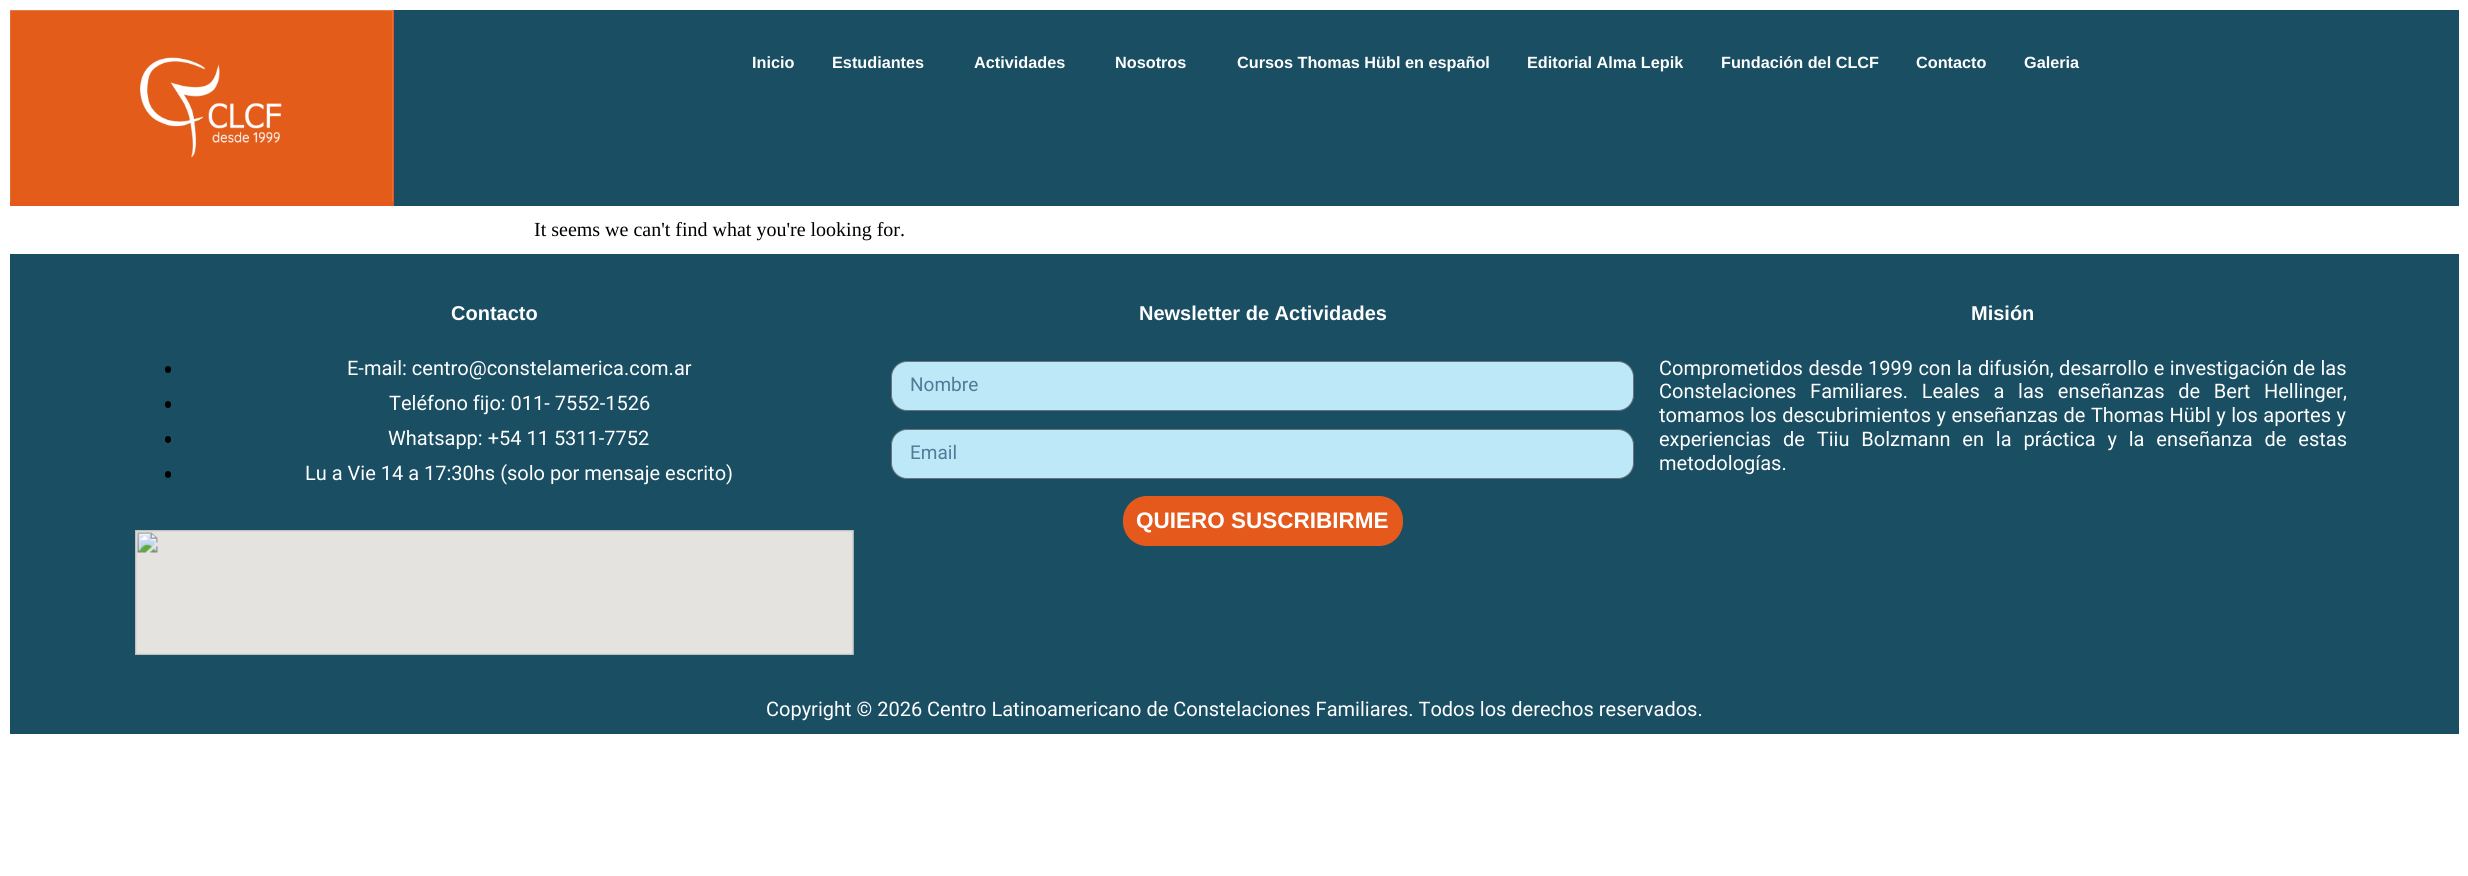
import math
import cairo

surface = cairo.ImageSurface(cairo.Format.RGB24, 2468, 876)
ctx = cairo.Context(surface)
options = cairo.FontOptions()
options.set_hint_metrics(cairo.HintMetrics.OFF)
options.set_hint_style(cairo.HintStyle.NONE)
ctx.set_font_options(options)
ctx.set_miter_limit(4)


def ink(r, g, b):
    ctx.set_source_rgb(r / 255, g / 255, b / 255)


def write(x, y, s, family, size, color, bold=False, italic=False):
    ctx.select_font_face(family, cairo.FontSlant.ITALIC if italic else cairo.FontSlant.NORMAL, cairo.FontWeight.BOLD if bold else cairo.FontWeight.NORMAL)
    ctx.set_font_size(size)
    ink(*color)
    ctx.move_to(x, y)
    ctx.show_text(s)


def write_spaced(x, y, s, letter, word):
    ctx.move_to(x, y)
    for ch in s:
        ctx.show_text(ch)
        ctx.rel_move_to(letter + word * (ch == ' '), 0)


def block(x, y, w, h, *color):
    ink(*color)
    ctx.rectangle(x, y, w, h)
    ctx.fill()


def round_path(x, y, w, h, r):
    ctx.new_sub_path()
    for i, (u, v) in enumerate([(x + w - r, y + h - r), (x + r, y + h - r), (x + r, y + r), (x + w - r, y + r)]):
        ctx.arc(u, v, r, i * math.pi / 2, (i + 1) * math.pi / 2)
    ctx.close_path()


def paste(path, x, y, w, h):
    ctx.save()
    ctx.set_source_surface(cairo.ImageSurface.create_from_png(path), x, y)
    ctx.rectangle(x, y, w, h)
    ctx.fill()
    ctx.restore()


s1 = dict(family="Liberation Sans", size=16.25, color=(255, 255, 255), bold=True)
s2 = dict(family="Liberation Serif", size=20, color=(0, 0, 0))
s3 = dict(family="Liberation Sans", size=20, color=(255, 255, 255), bold=True)
s4 = dict(family="Roboto", size=20, color=(255, 255, 255))
s5 = dict(family="Roboto", size=19, color=(80, 122, 152))
s6 = dict(family="Liberation Sans", size=22.5, color=(255, 255, 255), bold=True)

ink(255, 255, 255)
ctx.paint()
block(394, 10, 2065, 196, 25, 78, 99)
block(10, 10, 384, 196, 229, 90, 28)
paste("pic1.png", 10, 10, 383, 192)
write(752, 68, "Inicio", **s1)
write(832, 68, "Estudiantes", **s1)
write(974, 68, "Actividades", **s1)
write(1115, 68, "Nosotros", **s1)
write(1237, 68, "Cursos Thomas Hübl en español", **s1)
write(1527, 68, "Editorial Alma Lepik", **s1)
write(1721, 68, "Fundación del CLCF", **s1)
write(1916, 68, "Contacto", **s1)
write(2024, 68, "Galeria", **s1)
write(534, 236, "It seems we can't find what you're looking for.", **s2)
block(10, 254, 2449, 480, 25, 78, 99)
write(451, 320, "Contacto", **s3)
ink(0, 0, 0)
round_path(165, 366, 6, 7, 3)
ctx.fill()
write(347, 375, "E-mail: centro@constelamerica.com.ar", **s4)
ink(0, 0, 0)
round_path(165, 401, 6, 7, 3)
ctx.fill()
write(389, 410, "Teléfono fijo: 011- 7552-1526", **s4)
ink(0, 0, 0)
round_path(165, 436, 6, 7, 3)
ctx.fill()
write(388, 445, "Whatsapp: +54 11 5311-7752", **s4)
ink(0, 0, 0)
round_path(165, 471, 6, 7, 3)
ctx.fill()
write(305, 480, "Lu a Vie 14 a 17:30hs (solo por mensaje escrito)", **s4)
paste("pic2.png", 135, 530, 719, 125)
write(1139, 320, "Newsletter de Actividades", **s3)
ink(189, 232, 248)
round_path(891.5, 361.5, 742, 49, 15.5)
ctx.fill_preserve()
ink(105, 114, 125)
ctx.set_line_width(1)
ctx.stroke()
write(910, 391, "Nombre", **s5)
ink(189, 232, 248)
round_path(891.5, 429.5, 742, 49, 15.5)
ctx.fill_preserve()
ink(105, 114, 125)
ctx.stroke()
write(910, 459, "Email", **s5)
ink(229, 90, 28)
round_path(1123, 496, 280, 50, 24)
ctx.fill()
write(1136, 528, "QUIERO SUSCRIBIRME", **s6)
write(1971, 320, "Misión", **s3)
ctx.select_font_face("Roboto")
write_spaced(1659, 375, "Comprometidos desde 1999 con la difusión, desarrollo e investigación de las", 0, 0.5)
write_spaced(1659, 398, "Constelaciones Familiares. Leales a las enseñanzas de Bert Hellinger,", 0, 8.75)
write_spaced(1659, 422, "tomamos los descubrimientos y enseñanzas de Thomas Hübl y los aportes y", 0, 0.5)
write_spaced(1659, 446, "experiencias de Tiiu Bolzmann en la práctica y la enseñanza de estas", 0, 6.9)
write(1659, 470, "metodologías.", **s4)
write(766, 716, "Copyright © 2026 Centro Latinoamericano de Constelaciones Familiares. Todos los derechos reservados.", **s4)
surface.write_to_png("screenshot.png")
